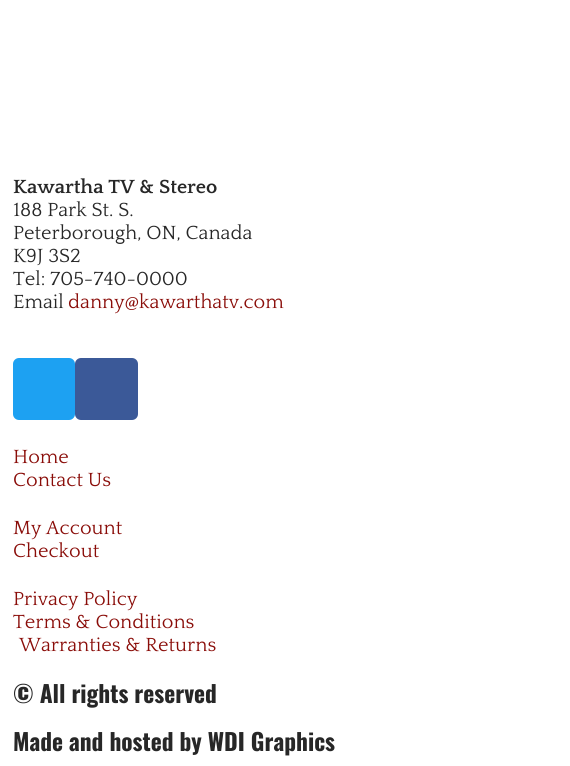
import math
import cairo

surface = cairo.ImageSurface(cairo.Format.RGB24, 570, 766)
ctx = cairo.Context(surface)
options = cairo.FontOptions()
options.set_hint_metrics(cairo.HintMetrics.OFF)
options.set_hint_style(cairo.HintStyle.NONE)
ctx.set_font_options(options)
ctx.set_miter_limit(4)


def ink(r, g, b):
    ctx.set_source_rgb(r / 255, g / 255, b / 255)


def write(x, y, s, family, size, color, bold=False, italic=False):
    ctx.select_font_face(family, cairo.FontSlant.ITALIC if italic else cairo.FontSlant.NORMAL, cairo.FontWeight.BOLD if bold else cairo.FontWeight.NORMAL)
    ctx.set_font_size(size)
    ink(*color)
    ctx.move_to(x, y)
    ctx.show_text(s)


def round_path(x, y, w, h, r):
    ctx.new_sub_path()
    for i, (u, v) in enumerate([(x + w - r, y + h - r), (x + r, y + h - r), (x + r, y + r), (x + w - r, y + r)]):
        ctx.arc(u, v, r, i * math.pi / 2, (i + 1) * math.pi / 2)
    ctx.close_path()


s1 = dict(family="Quattrocento", size=20, color=(39, 39, 39), bold=True)
s2 = dict(family="Quattrocento", size=20, color=(39, 39, 39))
s3 = dict(family="Quattrocento", size=20, color=(138, 13, 9))
s4 = dict(family="Oswald", size=23.4, color=(39, 39, 39), bold=True)

ink(255, 255, 255)
ctx.paint()
write(13, 193, "Kawartha TV & Stereo", **s1)
write(13, 216, "188 Park St. S.", **s2)
write(13, 239, "Peterborough, ON, Canada", **s2)
write(13, 262, "K9J 3S2", **s2)
write(13, 285, "Tel: 705-740-0000", **s2)
write(13, 308, "Email", **s2)
write(68, 308, "danny@kawarthatv.com", **s3)
ink(29, 161, 242)
round_path(13, 358, 62, 62, 6)
ctx.fill()
ink(59, 89, 152)
round_path(75, 358, 63, 62, 6)
ctx.fill()
write(13, 463, "Home", **s3)
write(13, 486, "Contact Us", **s3)
write(13, 534, "My Account", **s3)
write(13, 557, "Checkout", **s3)
write(13, 605, "Privacy Policy", **s3)
write(13, 628, "Terms & Conditions", **s3)
write(19, 651, "Warranties & Returns", **s3)
write(13, 703, "© All rights reserved", **s4)
write(13, 751, "Made and hosted by WDI Graphics", **s4)
surface.write_to_png("screenshot.png")
